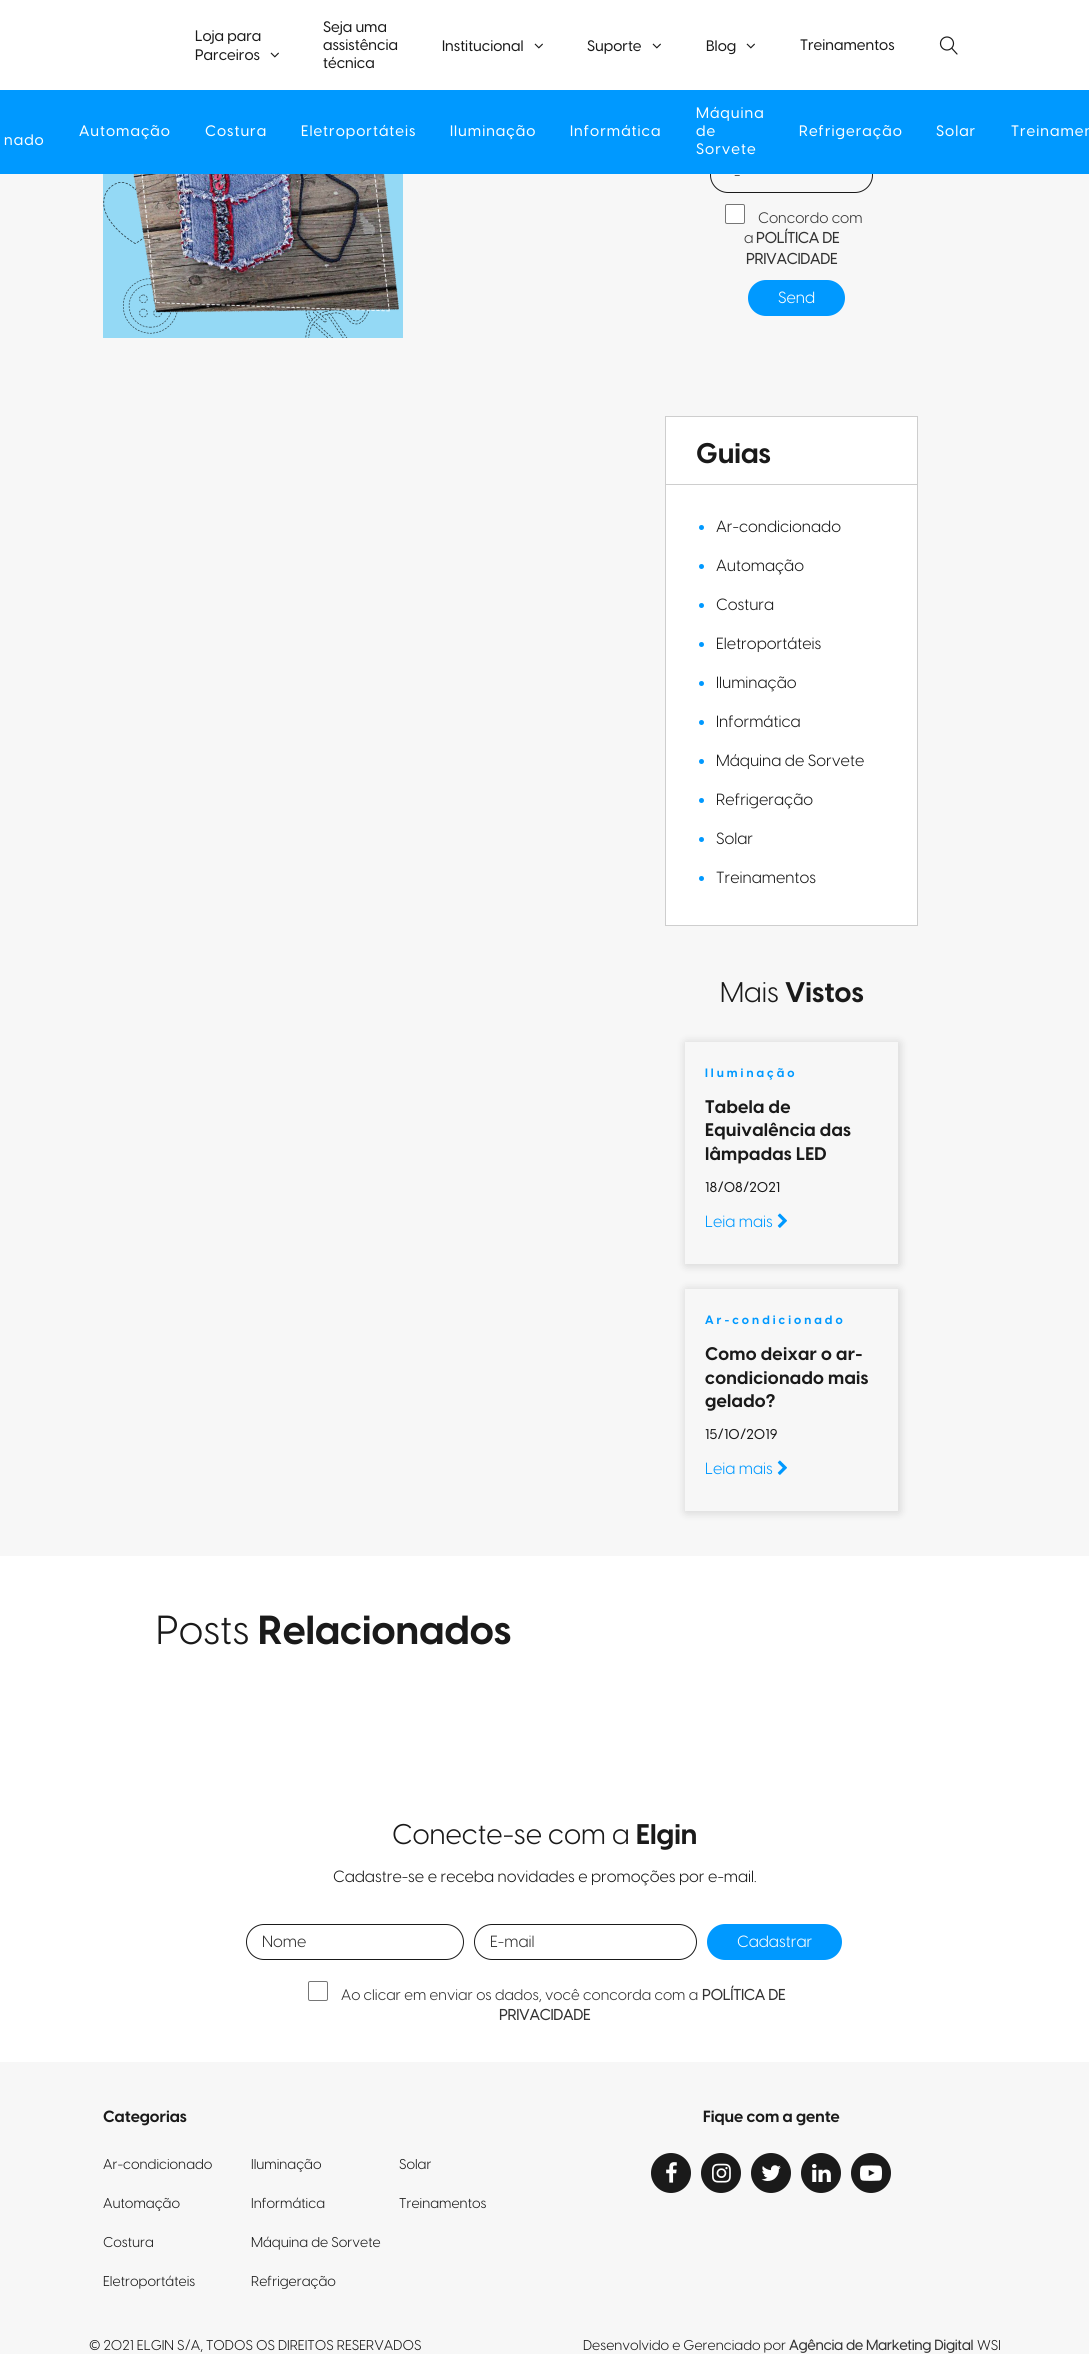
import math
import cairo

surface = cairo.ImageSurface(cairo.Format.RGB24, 1089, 2354)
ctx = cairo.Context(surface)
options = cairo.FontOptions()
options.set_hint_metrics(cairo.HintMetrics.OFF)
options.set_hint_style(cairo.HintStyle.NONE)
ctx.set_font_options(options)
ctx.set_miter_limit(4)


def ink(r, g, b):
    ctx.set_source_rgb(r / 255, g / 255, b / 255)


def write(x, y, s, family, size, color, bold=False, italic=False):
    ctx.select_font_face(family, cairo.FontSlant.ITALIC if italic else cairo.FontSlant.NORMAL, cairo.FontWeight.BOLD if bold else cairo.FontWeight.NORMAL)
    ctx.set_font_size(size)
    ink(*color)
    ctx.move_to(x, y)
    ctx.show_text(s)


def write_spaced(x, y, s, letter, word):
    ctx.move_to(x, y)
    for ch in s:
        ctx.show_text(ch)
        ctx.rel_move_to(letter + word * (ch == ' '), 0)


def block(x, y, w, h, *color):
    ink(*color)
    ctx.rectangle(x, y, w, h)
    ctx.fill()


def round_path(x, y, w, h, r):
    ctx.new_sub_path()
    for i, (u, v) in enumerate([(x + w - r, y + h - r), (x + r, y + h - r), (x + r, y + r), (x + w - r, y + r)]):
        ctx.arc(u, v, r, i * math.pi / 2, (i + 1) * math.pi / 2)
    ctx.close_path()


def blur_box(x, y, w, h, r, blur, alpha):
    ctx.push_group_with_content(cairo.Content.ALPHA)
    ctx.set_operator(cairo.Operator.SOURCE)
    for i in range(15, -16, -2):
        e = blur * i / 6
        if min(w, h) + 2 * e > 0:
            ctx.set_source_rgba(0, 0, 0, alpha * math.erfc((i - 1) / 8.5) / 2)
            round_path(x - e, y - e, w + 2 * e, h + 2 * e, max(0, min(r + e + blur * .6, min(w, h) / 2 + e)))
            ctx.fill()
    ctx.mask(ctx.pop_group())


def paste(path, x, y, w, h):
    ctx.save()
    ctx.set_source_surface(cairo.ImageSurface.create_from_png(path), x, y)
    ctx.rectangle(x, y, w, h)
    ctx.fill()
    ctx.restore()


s1 = dict(family="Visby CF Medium", size=15, color=(26, 26, 26))
s2 = dict(family="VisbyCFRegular", size=16, color=(51, 51, 51))
s3 = dict(family="VisbyCFRegular", size=15, color=(51, 51, 51))
s4 = dict(family="VisbyCFRegular", size=15, color=(51, 51, 51), bold=True)
s5 = dict(family="VisbyCFRegular", size=16, color=(255, 255, 255))
s6 = dict(family="Visby CF", size=28, color=(26, 26, 26), bold=True)
s7 = dict(family="VisbyCFRegular", size=16, color=(26, 26, 26))
s8 = dict(family="VisbyCFRegular", size=28, color=(26, 26, 26))
s9 = dict(family="Visby CF Medium", size=14, color=(26, 26, 26))
s10 = dict(family="VisbyCFRegular", size=16, color=(0, 153, 255))
s11 = dict(family="VisbyCFRegular", size=40, color=(26, 26, 26))
s12 = dict(family="Visby CF", size=40, color=(26, 26, 26), bold=True)
s13 = dict(family="Visby CF", size=16, color=(26, 26, 26), bold=True)
s14 = dict(family="VisbyCFRegular", size=14, color=(26, 26, 26))
s15 = dict(family="VisbyCFRegular", size=14, color=(51, 51, 51), bold=True)

ink(255, 255, 255)
ctx.paint()
write(195, 41, "Loja para", **s1)
write(195, 60, "Parceiros", **s1)
paste("pic1.png", 270, 52, 9, 6)
write(323, 32, "Seja uma", **s1)
write(323, 50, "assistência", **s1)
write(323, 68, "técnica", **s1)
write(442, 51, "Institucional", **s1)
paste("pic1.png", 534, 43, 9, 6)
write(587, 51, "Suporte", **s1)
paste("pic1.png", 652, 43, 9, 6)
write(706, 51, "Blog", **s1)
paste("pic1.png", 746, 43, 9, 6)
write(800, 50, "Treinamentos", **s1)
ctx.new_path()
ctx.arc(947, 43.5, 6.5, 0, 2 * math.pi)
ctx.set_line_width(1.2)
ctx.stroke()
ctx.new_path()
ctx.move_to(952, 48.5)
ctx.line_to(957, 54)
ctx.set_line_cap(cairo.LineCap.ROUND)
ctx.stroke()
block(0, 174, 1089, 1382, 247, 247, 247)
round_path(710.5, 157.5, 162, 35, 17.5)
ink(26, 26, 26)
ctx.set_line_width(1)
ctx.set_line_cap(cairo.LineCap.BUTT)
ctx.stroke()
block(0, 90, 1089, 84, 0, 153, 255)
ink(255, 255, 255)
write_spaced(79, 136, "Automação", 1, 0)
write_spaced(205, 136, "Costura", 1, 0)
write_spaced(301, 136, "Eletroportáteis", 1, 0)
write_spaced(450, 136, "Iluminação", 1, 0)
write_spaced(570, 136, "Informática", 1, 0)
write_spaced(696, 118, "Máquina", 1, 0)
write_spaced(696, 136, "de", 1, 0)
write_spaced(696, 154, "Sorvete", 1, 0)
write_spaced(799, 136, "Refrigeração", 1, 0)
write_spaced(936, 136, "Solar", 1, 0)
write_spaced(1011, 136, "Treinamen", 1, 0)
write_spaced(4, 145, "nado", 1, 0)
paste("pic2.png", 103, 174, 300, 164)
write(734, 180, "-", **s2)
ink(255, 255, 255)
round_path(725.5, 204.5, 19, 19, 1.5)
ctx.fill_preserve()
ink(118, 118, 118)
ctx.stroke()
write(758, 223, "Concordo com", **s3)
write(744, 243, "a", **s3)
write(756, 243, "POLÍTICA DE", **s4)
write(746, 264, "PRIVACIDADE", **s4)
ink(0, 153, 255)
round_path(748, 280, 97, 36, 18)
ctx.fill()
write(778, 303, "Send", **s5)
ctx.rectangle(665.5, 416.5, 252, 509)
ctx.fill_preserve()
ink(206, 206, 206)
ctx.stroke()
block(666, 484, 251, 1, 206, 206, 206)
write(696, 463, "Guias", **s6)
ink(0, 153, 255)
ctx.new_path()
ctx.arc(701.5, 527.5, 2.5, 0, 2 * math.pi)
ctx.fill()
write(716, 532, "Ar-condicionado", **s7)
ink(0, 153, 255)
ctx.new_path()
ctx.arc(701.5, 566.5, 2.5, 0, 2 * math.pi)
ctx.fill()
write(716, 571, "Automação", **s7)
ink(0, 153, 255)
ctx.new_path()
ctx.arc(701.5, 605.5, 2.5, 0, 2 * math.pi)
ctx.fill()
write(716, 610, "Costura", **s7)
ink(0, 153, 255)
ctx.new_path()
ctx.arc(701.5, 644.5, 2.5, 0, 2 * math.pi)
ctx.fill()
write(716, 649, "Eletroportáteis", **s7)
ink(0, 153, 255)
ctx.new_path()
ctx.arc(701.5, 683.5, 2.5, 0, 2 * math.pi)
ctx.fill()
write(716, 688, "Iluminação", **s7)
ink(0, 153, 255)
ctx.new_path()
ctx.arc(701.5, 722.5, 2.5, 0, 2 * math.pi)
ctx.fill()
write(716, 727, "Informática", **s7)
ink(0, 153, 255)
ctx.new_path()
ctx.arc(701.5, 761.5, 2.5, 0, 2 * math.pi)
ctx.fill()
write(716, 766, "Máquina de Sorvete", **s7)
ink(0, 153, 255)
ctx.new_path()
ctx.arc(701.5, 800.5, 2.5, 0, 2 * math.pi)
ctx.fill()
write(716, 805, "Refrigeração", **s7)
ink(0, 153, 255)
ctx.new_path()
ctx.arc(701.5, 839.5, 2.5, 0, 2 * math.pi)
ctx.fill()
write(716, 844, "Solar", **s7)
ink(0, 153, 255)
ctx.new_path()
ctx.arc(701.5, 878.5, 2.5, 0, 2 * math.pi)
ctx.fill()
write(716, 883, "Treinamentos", **s7)
write(720, 1002, "Mais", **s8)
write(785, 1002, "Vistos", **s6)
ctx.save()
ctx.set_fill_rule(cairo.FillRule.EVEN_ODD)
ctx.new_path()
ctx.move_to(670, 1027)
ctx.line_to(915, 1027)
ctx.line_to(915, 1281)
ctx.line_to(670, 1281)
ctx.close_path()
ctx.move_to(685, 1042)
ctx.line_to(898, 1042)
ctx.line_to(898, 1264)
ctx.line_to(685, 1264)
ctx.close_path()
ctx.clip()
ink(0, 0, 0)
blur_box(686, 1043, 213, 222, 0, 5, 0.16)
ctx.restore()
ctx.set_font_size(12)
ink(0, 153, 255)
write_spaced(705, 1077, "Iluminação", 3, 0)
ctx.set_font_size(18)
ink(26, 26, 26)
write_spaced(705, 1113, "Tabela de", 0.25, 0)
write_spaced(705, 1136, "Equivalência das", 0.25, 0)
write_spaced(705, 1160, "lâmpadas LED", 0.25, 0)
write(705, 1192, "18/08/2021", **s9)
write(705, 1227, "Leia mais", **s10)
paste("pic3.png", 777, 1213, 10, 15)
ctx.save()
ctx.set_fill_rule(cairo.FillRule.EVEN_ODD)
ctx.new_path()
ctx.move_to(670, 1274)
ctx.line_to(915, 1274)
ctx.line_to(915, 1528)
ctx.line_to(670, 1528)
ctx.close_path()
ctx.move_to(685, 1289)
ctx.line_to(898, 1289)
ctx.line_to(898, 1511)
ctx.line_to(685, 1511)
ctx.close_path()
ctx.clip()
ink(0, 0, 0)
blur_box(686, 1290, 213, 222, 0, 5, 0.16)
ctx.restore()
ctx.select_font_face("Visby CF", cairo.FontSlant.NORMAL, cairo.FontWeight.BOLD)
ctx.set_font_size(12)
write_spaced(705, 1324, "Ar-condicionado", 3, 0)
ctx.set_font_size(18)
ink(26, 26, 26)
write_spaced(705, 1360, "Como deixar o ar-", 0.25, 0)
write_spaced(705, 1384, "condicionado mais", 0.25, 0)
write_spaced(705, 1407, "gelado?", 0.25, 0)
write(705, 1439, "15/10/2019", **s9)
write(705, 1474, "Leia mais", **s10)
paste("pic3.png", 777, 1460, 10, 15)
write(156, 1644, "Posts", **s11)
write(258, 1644, "Relacionados", **s12)
write(392, 1844, "Conecte-se com a", **s8)
write(636, 1844, "Elgin", **s6)
write(333, 1882, "Cadastre-se e receba novidades e promoções por e-mail.", **s7)
round_path(246.5, 1924.5, 217, 35, 17.5)
ctx.stroke()
write(262, 1947, "Nome", **s2)
round_path(474.5, 1924.5, 222, 35, 17.5)
ink(26, 26, 26)
ctx.stroke()
write(490, 1947, "E-mail", **s2)
ink(0, 153, 255)
round_path(707, 1924, 135, 36, 18)
ctx.fill()
write(737, 1947, "Cadastrar", **s5)
round_path(308.5, 1981.5, 19, 19, 1.5)
ink(118, 118, 118)
ctx.stroke()
write(341, 2000, "Ao clicar em enviar os dados, você concorda com a", **s3)
write(702, 2000, "POLÍTICA DE", **s4)
write(499, 2020, "PRIVACIDADE", **s4)
block(0, 2062, 1089, 292, 247, 247, 247)
write(103, 2122, "Categorias", **s13)
write(103, 2169, "Ar-condicionado", **s14)
write(251, 2169, "Iluminação", **s14)
write(399, 2169, "Solar", **s14)
write(103, 2208, "Automação", **s14)
write(251, 2208, "Informática", **s14)
write(399, 2208, "Treinamentos", **s14)
write(103, 2247, "Costura", **s14)
write(251, 2247, "Máquina de Sorvete", **s14)
write(103, 2286, "Eletroportáteis", **s14)
write(251, 2286, "Refrigeração", **s14)
write(703, 2122, "Fique com a gente", **s13)
ctx.new_path()
ctx.arc(671, 2173, 20, 0, 2 * math.pi)
ctx.fill()
paste("pic4.png", 666, 2162, 11, 21)
ctx.arc(721, 2173, 20, 0, 2 * math.pi)
ctx.fill()
paste("pic5.png", 712, 2163, 19, 20)
ctx.arc(771, 2173, 20, 0, 2 * math.pi)
ctx.fill()
paste("pic6.png", 761, 2165, 20, 16)
ctx.arc(821, 2173, 20, 0, 2 * math.pi)
ctx.fill()
paste("pic7.png", 812, 2164, 19, 18)
ctx.arc(871, 2173, 20, 0, 2 * math.pi)
ctx.fill()
paste("pic8.png", 860, 2165, 22, 16)
write(89, 2350, "© 2021 ELGIN S/A, TODOS OS DIREITOS RESERVADOS", **s14)
write(583, 2350, "Desenvolvido e Gerenciado por", **s14)
write(789, 2350, "Agência de Marketing Digital", **s15)
write(977, 2350, "WSI", **s14)
surface.write_to_png("screenshot.png")
